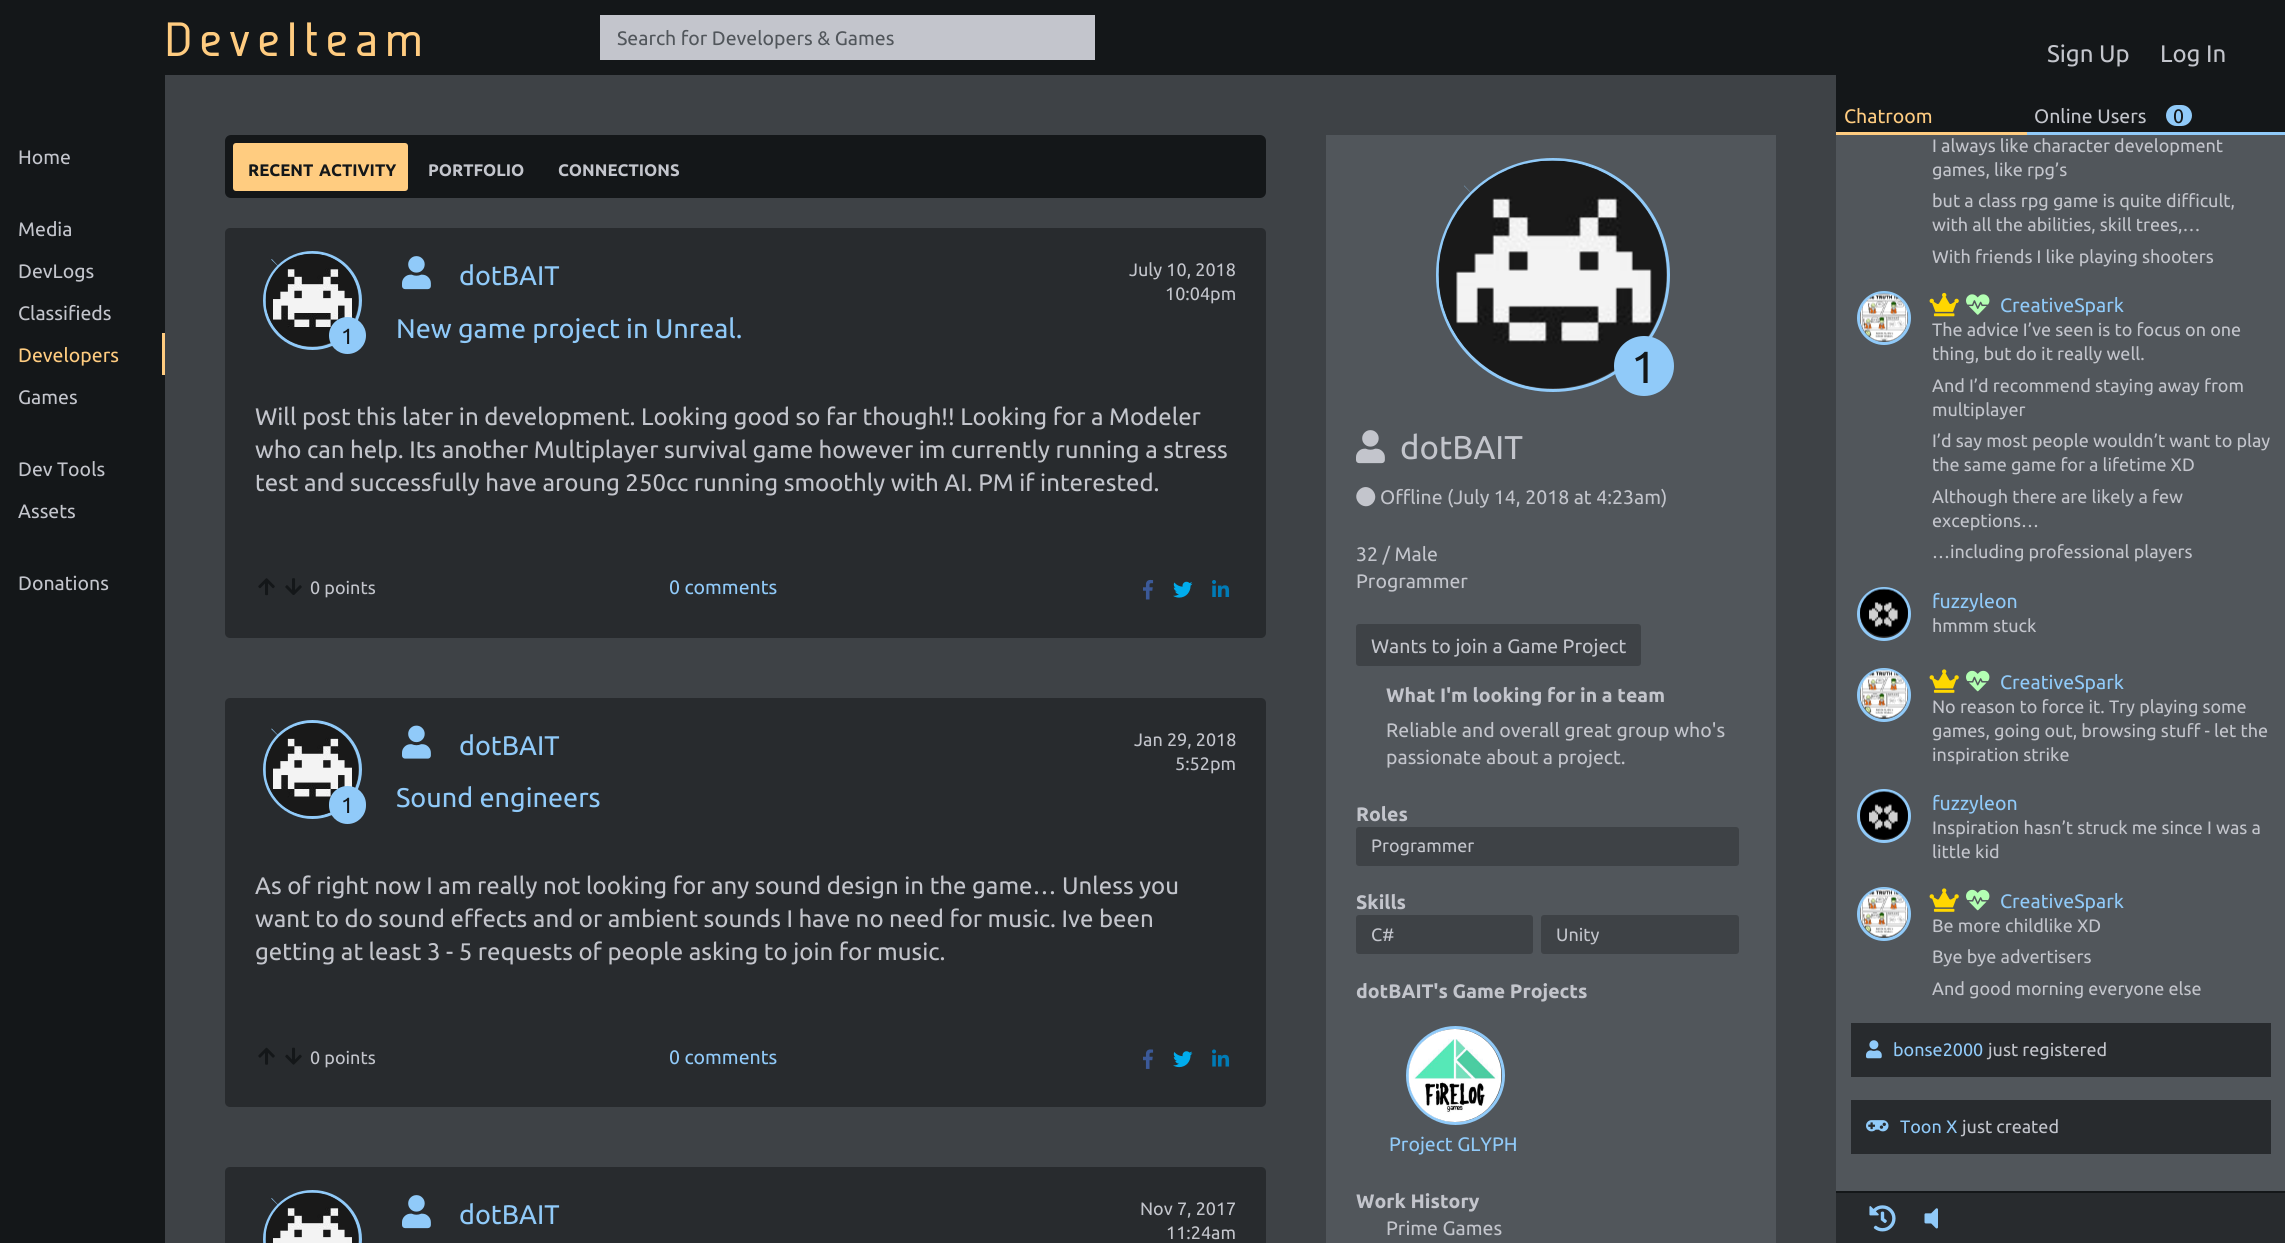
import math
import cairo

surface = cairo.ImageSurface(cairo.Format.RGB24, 2285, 1243)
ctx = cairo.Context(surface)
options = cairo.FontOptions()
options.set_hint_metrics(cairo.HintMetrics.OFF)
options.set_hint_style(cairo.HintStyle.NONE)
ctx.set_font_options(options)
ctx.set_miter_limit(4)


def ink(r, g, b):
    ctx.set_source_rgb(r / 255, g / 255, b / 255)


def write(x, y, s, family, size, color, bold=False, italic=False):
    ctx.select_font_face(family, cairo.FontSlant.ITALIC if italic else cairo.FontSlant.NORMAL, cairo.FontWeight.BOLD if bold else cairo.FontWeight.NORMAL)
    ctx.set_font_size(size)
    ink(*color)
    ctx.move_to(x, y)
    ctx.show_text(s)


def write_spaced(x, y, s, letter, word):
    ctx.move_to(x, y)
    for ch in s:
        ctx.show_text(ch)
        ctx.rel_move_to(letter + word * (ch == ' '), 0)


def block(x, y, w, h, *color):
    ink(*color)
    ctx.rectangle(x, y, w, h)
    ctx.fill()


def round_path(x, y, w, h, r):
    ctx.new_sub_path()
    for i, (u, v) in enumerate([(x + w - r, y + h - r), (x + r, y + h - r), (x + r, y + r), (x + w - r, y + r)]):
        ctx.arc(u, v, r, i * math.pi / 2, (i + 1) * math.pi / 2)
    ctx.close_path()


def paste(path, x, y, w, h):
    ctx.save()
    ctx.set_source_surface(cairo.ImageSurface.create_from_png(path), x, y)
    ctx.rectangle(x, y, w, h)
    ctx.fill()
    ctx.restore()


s1 = dict(family="Ubuntu", size=19.5, color=(81, 86, 91))
s2 = dict(family="Ubuntu", size=24, color=(195, 197, 204))
s3 = dict(family="Ubuntu", size=19.5, color=(195, 197, 204))
s4 = dict(family="Ubuntu", size=19.5, color=(255, 204, 128))
s5 = dict(family="Ubuntu", size=16.75, color=(20, 23, 25), bold=True)
s6 = dict(family="Ubuntu", size=16.75, color=(195, 197, 204), bold=True)
s7 = dict(family="Ubuntu", size=22, color=(20, 23, 25))
s8 = dict(family="Ubuntu", size=27, color=(144, 202, 249))
s9 = dict(family="Ubuntu", size=18, color=(195, 197, 204))
s10 = dict(family="Ubuntu", size=19.5, color=(144, 202, 249))
s11 = dict(family="Ubuntu", size=45, color=(20, 23, 25))
s12 = dict(family="Ubuntu", size=33, color=(195, 197, 204))
s13 = dict(family="Ubuntu", size=19.5, color=(195, 197, 204), bold=True)
s14 = dict(family="Ubuntu", size=19.5, color=(20, 23, 25))
s15 = dict(family="Ubuntu", size=18, color=(144, 202, 249))

ink(62, 66, 70)
ctx.paint()
block(0, 0, 2285, 75, 20, 23, 25)
ctx.select_font_face("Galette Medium")
ctx.set_font_size(48)
ink(255, 204, 128)
write_spaced(165, 56, "Develteam", 7.5, 0)
block(600, 15, 495, 45, 195, 197, 204)
write(617, 45, "Search for Developers & Games", **s1)
write(2047, 62, "Sign Up", **s2)
write(2160, 62, "Log In", **s2)
block(0, 75, 165, 1168, 20, 23, 25)
write(18, 164, "Home", **s3)
write(18, 236, "Media", **s3)
write(18, 278, "DevLogs", **s3)
write(18, 320, "Classifieds", **s3)
block(162, 333, 3, 42, 255, 204, 128)
write(18, 362, "Developers", **s4)
write(18, 404, "Games", **s3)
write(18, 476, "Dev Tools", **s3)
write(18, 518, "Assets", **s3)
write(18, 590, "Donations", **s3)
ink(20, 23, 25)
round_path(225, 135, 1041, 63, 6)
ctx.fill()
ink(255, 204, 128)
round_path(233, 143, 175, 48, 3)
ctx.fill()
write(248, 176, "RECENT", **s5)
write(319, 176, "ACTIVITY", **s5)
write(428, 176, "PORTFOLIO", **s6)
write(558, 176, "CONNECTIONS", **s6)
ink(40, 43, 46)
round_path(225, 228, 1041, 410, 5)
ctx.fill()
ctx.new_path()
ctx.move_to(282, 270)
ctx.curve_to(297.5, 254, 323.5, 254, 339, 270)
ctx.curve_to(355, 285.5, 355, 311.5, 339, 327)
ctx.curve_to(323.5, 343, 297.5, 343, 282, 327)
ctx.curve_to(266, 311.5, 266, 285.5, 282, 270)
ctx.close_path()
ink(144, 202, 249)
ctx.set_line_width(30)
ctx.set_dash([0, 15000])
ctx.stroke()
ink(68, 68, 68)
ctx.arc(312.5, 300.5, 48, 0, 2 * math.pi)
ctx.fill_preserve()
ink(144, 202, 249)
ctx.set_line_width(3)
ctx.set_dash([])
ctx.stroke()
paste("pic1.png", 265, 253, 94, 94)
ctx.arc(347.5, 335.5, 16, 0, 2 * math.pi)
ctx.fill_preserve()
ctx.set_line_width(5)
ctx.stroke()
write(341, 344, "1", **s7)
paste("pic2.png", 402, 256, 29, 34)
write(459, 285, "dotBAIT", **s8)
write(396, 338, "New game project in Unreal.", **s8)
write(1129, 276, "July 10, 2018", **s9)
write(1165, 300, "10:04pm", **s9)
write(255, 425, "Will post this later in development. Looking good so far though!! Looking for a Modeler", **s2)
write(255, 458, "who can help. Its another Multiplayer survival game however im currently running a stress", **s2)
write(255, 491, "test and successfully have aroung 250cc running smoothly with AI. PM if interested.", **s2)
paste("pic3.png", 258, 578, 17, 18)
paste("pic4.png", 285, 578, 17, 17)
write(310, 594, "0 points", **s9)
write(669, 594, "0 comments", **s10)
paste("pic5.png", 1143, 579, 11, 21)
paste("pic6.png", 1173, 581, 20, 17)
paste("pic7.png", 1212, 580, 18, 17)
ink(40, 43, 46)
round_path(225, 698, 1041, 409, 5)
ctx.fill()
ctx.new_path()
ctx.move_to(282, 739.5)
ctx.curve_to(297.5, 723.5, 323.5, 723.5, 339, 739.5)
ctx.curve_to(355, 755, 355, 781, 339, 796.5)
ctx.curve_to(323.5, 812.5, 297.5, 812.5, 282, 796.5)
ctx.curve_to(266, 781, 266, 755, 282, 739.5)
ctx.close_path()
ink(144, 202, 249)
ctx.set_line_width(30)
ctx.set_dash([0, 15000])
ctx.stroke()
ink(68, 68, 68)
ctx.arc(312.5, 769.5, 48, 0, 2 * math.pi)
ctx.fill_preserve()
ink(144, 202, 249)
ctx.set_line_width(3)
ctx.set_dash([])
ctx.stroke()
paste("pic8.png", 265, 723, 94, 93)
round_path(331.5, 788.5, 32, 33, 16)
ctx.fill_preserve()
ctx.set_line_width(5)
ctx.stroke()
write(341, 813, "1", **s7)
paste("pic9.png", 402, 725, 29, 34)
write(459, 755, "dotBAIT", **s8)
write(396, 807, "Sound engineers", **s8)
write(1134, 746, "Jan 29, 2018", **s9)
write(1175, 770, "5:52pm", **s9)
write(255, 894, "As of right now I am really not looking for any sound design in the game… Unless you", **s2)
write(255, 927, "want to do sound effects and or ambient sounds I have no need for music. Ive been", **s2)
write(255, 960, "getting at least 3 - 5 requests of people asking to join for music.", **s2)
paste("pic10.png", 258, 1047, 17, 18)
paste("pic11.png", 285, 1047, 17, 18)
write(310, 1064, "0 points", **s9)
write(669, 1064, "0 comments", **s10)
paste("pic12.png", 1143, 1049, 11, 20)
paste("pic13.png", 1173, 1051, 20, 17)
paste("pic14.png", 1212, 1049, 18, 18)
ink(40, 43, 46)
ctx.new_path()
ctx.move_to(230, 1167)
ctx.line_to(1261, 1167)
ctx.curve_to(1264, 1167, 1266, 1169, 1266, 1172)
ctx.line_to(1266, 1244)
ctx.line_to(225, 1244)
ctx.line_to(225, 1172)
ctx.curve_to(225, 1169, 227, 1167, 230, 1167)
ctx.close_path()
ctx.fill()
ctx.new_path()
ctx.move_to(282, 1209)
ctx.curve_to(297.5, 1193, 323.5, 1193, 339, 1209)
ctx.curve_to(355, 1224.5, 355, 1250.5, 339, 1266)
ctx.curve_to(323.5, 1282, 297.5, 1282, 282, 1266)
ctx.curve_to(266, 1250.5, 266, 1224.5, 282, 1209)
ctx.close_path()
ink(144, 202, 249)
ctx.set_line_width(30)
ctx.set_dash([0, 15000])
ctx.stroke()
ink(68, 68, 68)
ctx.arc(312.5, 1239.5, 48, 0, 2 * math.pi)
ctx.fill_preserve()
ink(144, 202, 249)
ctx.set_line_width(3)
ctx.set_dash([])
ctx.stroke()
paste("pic15.png", 265, 1192, 94, 51)
paste("pic2.png", 402, 1195, 29, 34)
write(459, 1224, "dotBAIT", **s8)
write(1140, 1215, "Nov 7, 2017", **s9)
write(1166, 1239, "11:24am", **s9)
block(1326, 135, 450, 1108, 81, 86, 91)
ctx.new_path()
ctx.move_to(1474.5, 196.5)
ctx.curve_to(1517, 154.5, 1585, 154.5, 1627.5, 196.5)
ctx.curve_to(1669.5, 239, 1669.5, 307, 1627.5, 349.5)
ctx.curve_to(1585, 391.5, 1517, 391.5, 1474.5, 349.5)
ctx.curve_to(1432.5, 307, 1432.5, 239, 1474.5, 196.5)
ctx.close_path()
ink(144, 202, 249)
ctx.set_line_width(30)
ctx.set_dash([0, 15000])
ctx.stroke()
ink(68, 68, 68)
ctx.arc(1553, 275, 115.5, 0, 2 * math.pi)
ctx.fill_preserve()
ink(144, 202, 249)
ctx.set_line_width(3)
ctx.set_dash([])
ctx.stroke()
paste("pic16.png", 1438, 160, 229, 229)
ctx.arc(1644, 366, 27.5, 0, 2 * math.pi)
ctx.fill_preserve()
ctx.set_line_width(5)
ctx.stroke()
write(1631, 383, "1", **s11)
paste("pic17.png", 1356, 430, 29, 34)
write(1400, 459, "dotBAIT", **s12)
ctx.new_path()
ctx.move_to(1359, 490)
ctx.curve_to(1368, 481, 1381, 494.5, 1372.5, 503.5)
ctx.curve_to(1363.5, 512, 1350.5, 499, 1359, 490)
ctx.close_path()
ctx.fill()
write(1380, 504, "Offline (July 14, 2018 at 4:23am)", **s3)
write(1356, 561, "32 / Male", **s3)
write(1356, 588, "Programmer", **s3)
ink(62, 66, 70)
round_path(1356, 624, 285, 42, 3)
ctx.fill()
write(1371, 653, "Wants to join a Game Project", **s3)
write(1386, 702, "What I'm looking for in a team", **s13)
write(1386, 737, "Reliable and overall great group who's", **s3)
write(1386, 764, "passionate about a project.", **s3)
write(1356, 821, "Roles", **s13)
ink(62, 66, 70)
round_path(1356, 827, 383, 39, 3)
ctx.fill()
write(1371, 852, "Programmer", **s9)
write(1356, 909, "Skills", **s13)
ink(62, 66, 70)
round_path(1356, 915, 177, 39, 3)
ctx.fill()
write(1371, 941, "C#", **s9)
ink(62, 66, 70)
round_path(1541, 915, 198, 39, 3)
ctx.fill()
write(1556, 941, "Unity", **s9)
write(1356, 998, "dotBAIT's Game Projects", **s13)
ink(68, 68, 68)
ctx.new_path()
ctx.arc(1455.5, 1075.5, 48, 0, 2 * math.pi)
ctx.fill_preserve()
ink(144, 202, 249)
ctx.set_line_width(3)
ctx.stroke()
paste("pic18.png", 1408, 1029, 94, 93)
write(1389, 1151, "Project GLYPH", **s10)
write(1356, 1208, "Work History", **s13)
write(1386, 1235, "Prime Games", **s3)
block(1836, 135, 449, 1056, 81, 86, 91)
block(1836, 75, 449, 57, 20, 23, 25)
block(1836, 132, 191, 3, 255, 204, 128)
write(1844, 123, "Chatroom", **s4)
block(2027, 132, 258, 3, 144, 202, 249)
write(2034, 123, "Online Users", **s3)
ink(144, 202, 249)
round_path(2166, 105, 26, 21, 10.5)
ctx.fill()
write(2173, 123, "0", **s14)
write(1932, 152, "I always like character development", **s9)
write(1932, 176, "games, like rpg’s", **s9)
write(1932, 207, "but a class rpg game is quite difficult,", **s9)
write(1932, 231, "with all the abilities, skill trees,…", **s9)
write(1932, 263, "With friends I like playing shooters", **s9)
ink(68, 68, 68)
ctx.new_path()
ctx.arc(1884, 318, 25.5, 0, 2 * math.pi)
ctx.fill_preserve()
ink(144, 202, 249)
ctx.stroke()
paste("pic19.png", 1860, 293, 48, 49)
paste("pic20.png", 1929, 292, 30, 25)
paste("pic21.png", 1966, 294, 24, 21)
write(2000, 312, "CreativeSpark", **s10)
write(1932, 336, "The advice I’ve seen is to focus on one", **s9)
write(1932, 360, "thing, but do it really well.", **s9)
write(1932, 392, "And I’d recommend staying away from", **s9)
write(1932, 416, "multiplayer", **s9)
write(1932, 447, "I’d say most people wouldn’t want to play", **s9)
write(1932, 471, "the same game for a lifetime XD", **s9)
write(1932, 503, "Although there are likely a few", **s9)
write(1932, 527, "exceptions…", **s9)
write(1932, 558, "…including professional players", **s9)
ink(68, 68, 68)
ctx.new_path()
ctx.arc(1884, 614, 25.5, 0, 2 * math.pi)
ctx.fill_preserve()
ink(144, 202, 249)
ctx.stroke()
paste("pic22.png", 1860, 588, 48, 50)
write(1932, 608, "fuzzyleon", **s10)
write(1932, 632, "hmmm stuck", **s9)
ink(68, 68, 68)
ctx.new_path()
ctx.arc(1884, 695, 25.5, 0, 2 * math.pi)
ctx.fill_preserve()
ink(144, 202, 249)
ctx.stroke()
paste("pic23.png", 1860, 669, 48, 50)
paste("pic24.png", 1929, 669, 30, 24)
paste("pic25.png", 1966, 670, 24, 22)
write(2000, 689, "CreativeSpark", **s10)
write(1932, 713, "No reason to force it. Try playing some", **s9)
write(1932, 737, "games, going out, browsing stuff - let the", **s9)
write(1932, 761, "inspiration strike", **s9)
ink(68, 68, 68)
ctx.new_path()
ctx.arc(1884, 816, 25.5, 0, 2 * math.pi)
ctx.fill_preserve()
ink(144, 202, 249)
ctx.stroke()
paste("pic26.png", 1860, 791, 48, 49)
write(1932, 810, "fuzzyleon", **s10)
write(1932, 834, "Inspiration hasn’t struck me since I was a", **s9)
write(1932, 858, "little kid", **s9)
ink(68, 68, 68)
ctx.new_path()
ctx.arc(1884, 914, 25.5, 0, 2 * math.pi)
ctx.fill_preserve()
ink(144, 202, 249)
ctx.stroke()
paste("pic23.png", 1860, 888, 48, 50)
paste("pic24.png", 1929, 888, 30, 24)
paste("pic25.png", 1966, 889, 24, 22)
write(2000, 908, "CreativeSpark", **s10)
write(1932, 932, "Be more childlike XD", **s9)
write(1932, 963, "Bye bye advertisers", **s9)
write(1932, 995, "And good morning everyone else", **s9)
block(1851, 1023, 420, 54, 40, 43, 46)
paste("pic27.png", 1866, 1040, 16, 19)
write(1893, 1056, "bonse2000", **s15)
write(1988, 1056, "just registered", **s9)
block(1851, 1100, 420, 54, 40, 43, 46)
paste("pic28.png", 1866, 1120, 23, 12)
write(1900, 1133, "Toon X", **s15)
write(1962, 1133, "just created", **s9)
block(1836, 1193, 449, 50, 40, 43, 46)
block(1836, 1191, 449, 2, 20, 23, 25)
paste("pic29.png", 1869, 1205, 27, 27)
paste("pic30.png", 1924, 1208, 14, 21)
surface.write_to_png("screenshot.png")
